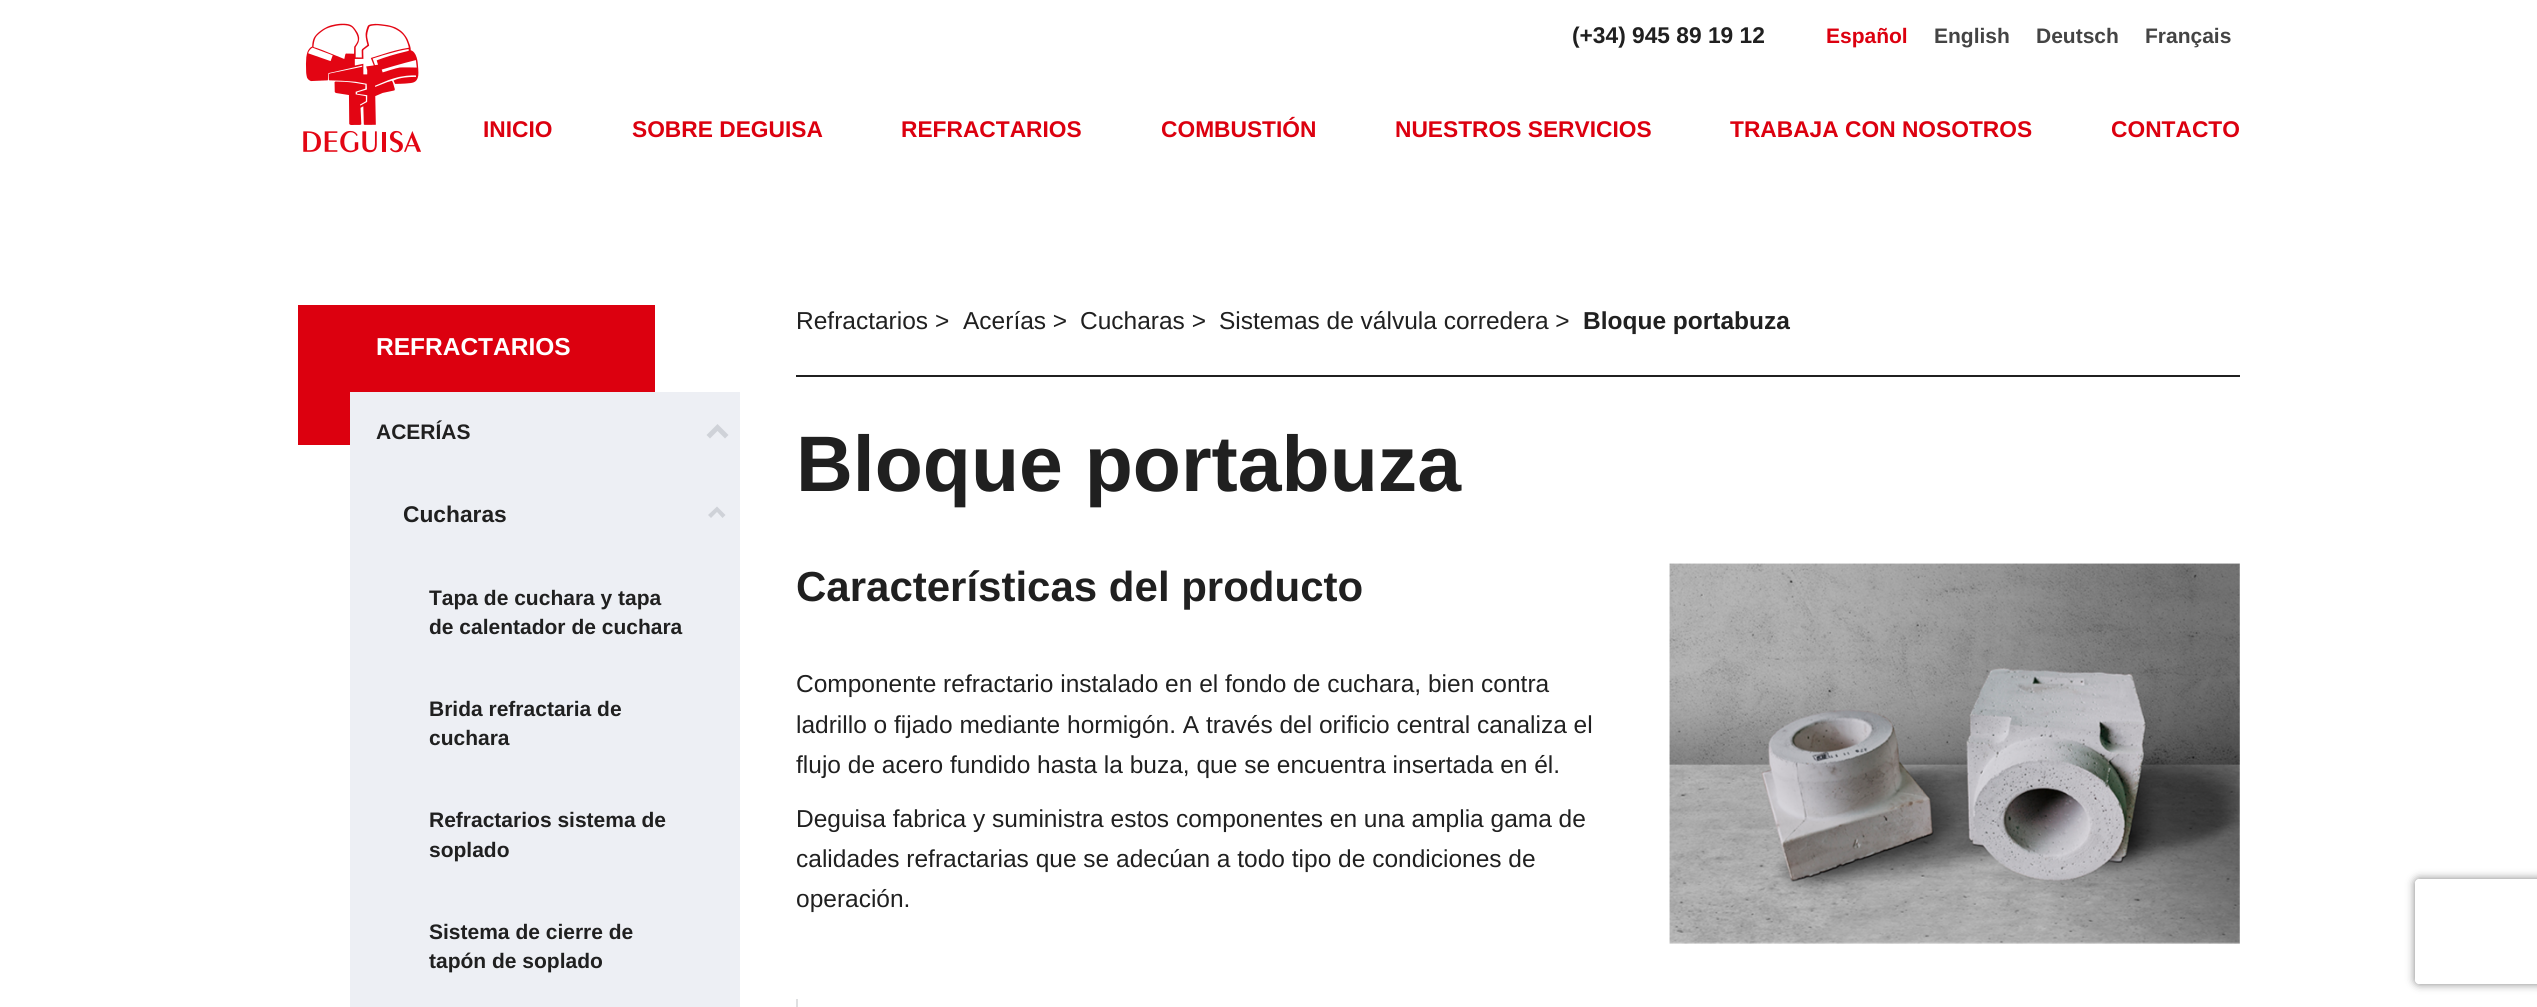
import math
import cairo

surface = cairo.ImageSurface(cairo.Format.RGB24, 2537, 1007)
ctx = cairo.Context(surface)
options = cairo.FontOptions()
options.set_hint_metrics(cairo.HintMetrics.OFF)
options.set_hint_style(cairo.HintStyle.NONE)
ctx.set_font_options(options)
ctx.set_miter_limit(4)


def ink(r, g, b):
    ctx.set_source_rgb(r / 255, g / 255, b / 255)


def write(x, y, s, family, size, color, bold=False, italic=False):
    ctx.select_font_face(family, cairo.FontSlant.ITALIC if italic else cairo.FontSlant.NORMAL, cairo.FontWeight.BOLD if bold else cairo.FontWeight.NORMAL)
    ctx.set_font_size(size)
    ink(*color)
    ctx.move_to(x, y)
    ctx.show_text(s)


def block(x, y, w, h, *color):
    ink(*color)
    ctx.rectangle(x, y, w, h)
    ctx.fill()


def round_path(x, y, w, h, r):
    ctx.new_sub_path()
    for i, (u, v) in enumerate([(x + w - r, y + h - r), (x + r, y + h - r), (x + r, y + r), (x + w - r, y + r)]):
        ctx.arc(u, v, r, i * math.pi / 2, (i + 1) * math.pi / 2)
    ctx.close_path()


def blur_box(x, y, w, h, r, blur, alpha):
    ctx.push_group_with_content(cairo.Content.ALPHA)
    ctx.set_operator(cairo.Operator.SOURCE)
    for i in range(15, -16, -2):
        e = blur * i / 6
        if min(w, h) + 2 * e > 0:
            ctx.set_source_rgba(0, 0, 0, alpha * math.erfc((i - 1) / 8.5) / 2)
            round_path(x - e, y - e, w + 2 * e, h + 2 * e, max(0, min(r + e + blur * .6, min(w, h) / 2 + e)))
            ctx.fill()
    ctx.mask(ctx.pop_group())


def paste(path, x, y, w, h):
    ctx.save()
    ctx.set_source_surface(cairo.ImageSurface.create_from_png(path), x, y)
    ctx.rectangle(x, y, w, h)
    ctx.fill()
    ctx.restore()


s1 = dict(family="Liberation Sans", size=22.75, color=(32, 32, 32), bold=True)
s2 = dict(family="Liberation Sans", size=21, color=(220, 0, 15), bold=True)
s3 = dict(family="Liberation Sans", size=21, color=(68, 68, 68), bold=True)
s4 = dict(family="Liberation Sans", size=22.75, color=(220, 0, 15), bold=True)
s5 = dict(family="Liberation Sans", size=24.5, color=(255, 255, 255), bold=True)
s6 = dict(family="Liberation Sans", size=21, color=(32, 32, 32), bold=True)
s7 = dict(family="Liberation Sans", size=24.5, color=(32, 32, 32))
s8 = dict(family="Liberation Sans", size=24.5, color=(32, 32, 32), bold=True)
s9 = dict(family="Liberation Sans", size=78.75, color=(32, 32, 32), bold=True)
s10 = dict(family="Liberation Sans", size=42, color=(32, 32, 32), bold=True)

ink(255, 255, 255)
ctx.paint()
write(1572, 43, "(+34) 945 89 19 12", **s1)
write(1826, 43, "Español", **s2)
write(1934, 43, "English", **s3)
write(2036, 43, "Deutsch", **s3)
write(2145, 43, "Français", **s3)
paste("pic1.png", 303, 23, 118, 130)
write(483, 137, "INICIO", **s4)
write(632, 137, "SOBRE DEGUISA", **s4)
write(901, 137, "REFRACTARIOS", **s4)
write(1161, 137, "COMBUSTIÓN", **s4)
write(1395, 137, "NUESTROS SERVICIOS", **s4)
write(1730, 137, "TRABAJA CON NOSOTROS", **s4)
write(2111, 137, "CONTACTO", **s4)
block(298, 305, 357, 140, 220, 0, 15)
write(376, 355, "REFRACTARIOS", **s5)
block(350, 392, 390, 615, 237, 239, 244)
write(376, 439, "ACERÍAS", **s6)
ink(207, 210, 216)
ctx.new_path()
ctx.move_to(717.5, 424)
ctx.line_to(728.5, 435)
ctx.line_to(725, 438.5)
ctx.line_to(717.5, 431)
ctx.line_to(710, 438.5)
ctx.line_to(706.5, 435)
ctx.close_path()
ctx.fill()
write(403, 522, "Cucharas", **s1)
ink(207, 210, 216)
ctx.new_path()
ctx.move_to(717, 506.5)
ctx.line_to(725.5, 515)
ctx.line_to(722.5, 518)
ctx.line_to(717, 512)
ctx.line_to(711, 518)
ctx.line_to(708, 515)
ctx.close_path()
ctx.fill()
write(429, 605, "Tapa de cuchara y tapa", **s6)
write(429, 634, "de calentador de cuchara", **s6)
write(429, 716, "Brida refractaria de", **s6)
write(429, 745, "cuchara", **s6)
write(429, 827, "Refractarios sistema de", **s6)
write(429, 857, "soplado", **s6)
write(429, 939, "Sistema de cierre de", **s6)
write(429, 968, "tapón de soplado", **s6)
block(796, 375, 1444, 2, 32, 32, 32)
write(796, 329, "Refractarios >", **s7)
write(963, 329, "Acerías >", **s7)
write(1080, 329, "Cucharas >", **s7)
write(1219, 329, "Sistemas de válvula corredera >", **s7)
write(1583, 329, "Bloque portabuza", **s8)
write(796, 491, "Bloque portabuza", **s9)
write(796, 601, "Características del producto", **s10)
write(796, 692, "Componente refractario instalado en el fondo de cuchara, bien contra", **s7)
write(796, 733, "ladrillo o fijado mediante hormigón. A través del orificio central canaliza el", **s7)
write(796, 773, "flujo de acero fundido hasta la buza, que se encuentra insertada en él.", **s7)
write(796, 827, "Deguisa fabrica y suministra estos componentes en una amplia gama de", **s7)
write(796, 867, "calidades refractarias que se adecúan a todo tipo de condiciones de", **s7)
write(796, 907, "operación.", **s7)
block(796, 999, 2, 8, 223, 224, 225)
paste("pic2.png", 1669, 563, 571, 381)
paste("pic3.png", 2239, 564, 1, 378)
ctx.save()
ctx.set_fill_rule(cairo.FillRule.EVEN_ODD)
ctx.new_path()
ctx.move_to(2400, 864)
ctx.line_to(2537, 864)
ctx.line_to(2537, 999)
ctx.line_to(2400, 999)
ctx.close_path()
ctx.move_to(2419, 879)
ctx.line_to(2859, 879)
ctx.curve_to(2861, 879, 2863, 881, 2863, 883)
ctx.line_to(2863, 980)
ctx.curve_to(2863, 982, 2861, 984, 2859, 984)
ctx.line_to(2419, 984)
ctx.curve_to(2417, 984, 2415, 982, 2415, 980)
ctx.line_to(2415, 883)
ctx.curve_to(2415, 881, 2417, 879, 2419, 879)
ctx.close_path()
ctx.clip()
ink(128, 128, 128)
blur_box(2415, 879, 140, 105, 4, 4.5, 1)
ctx.restore()
surface.write_to_png("screenshot.png")
